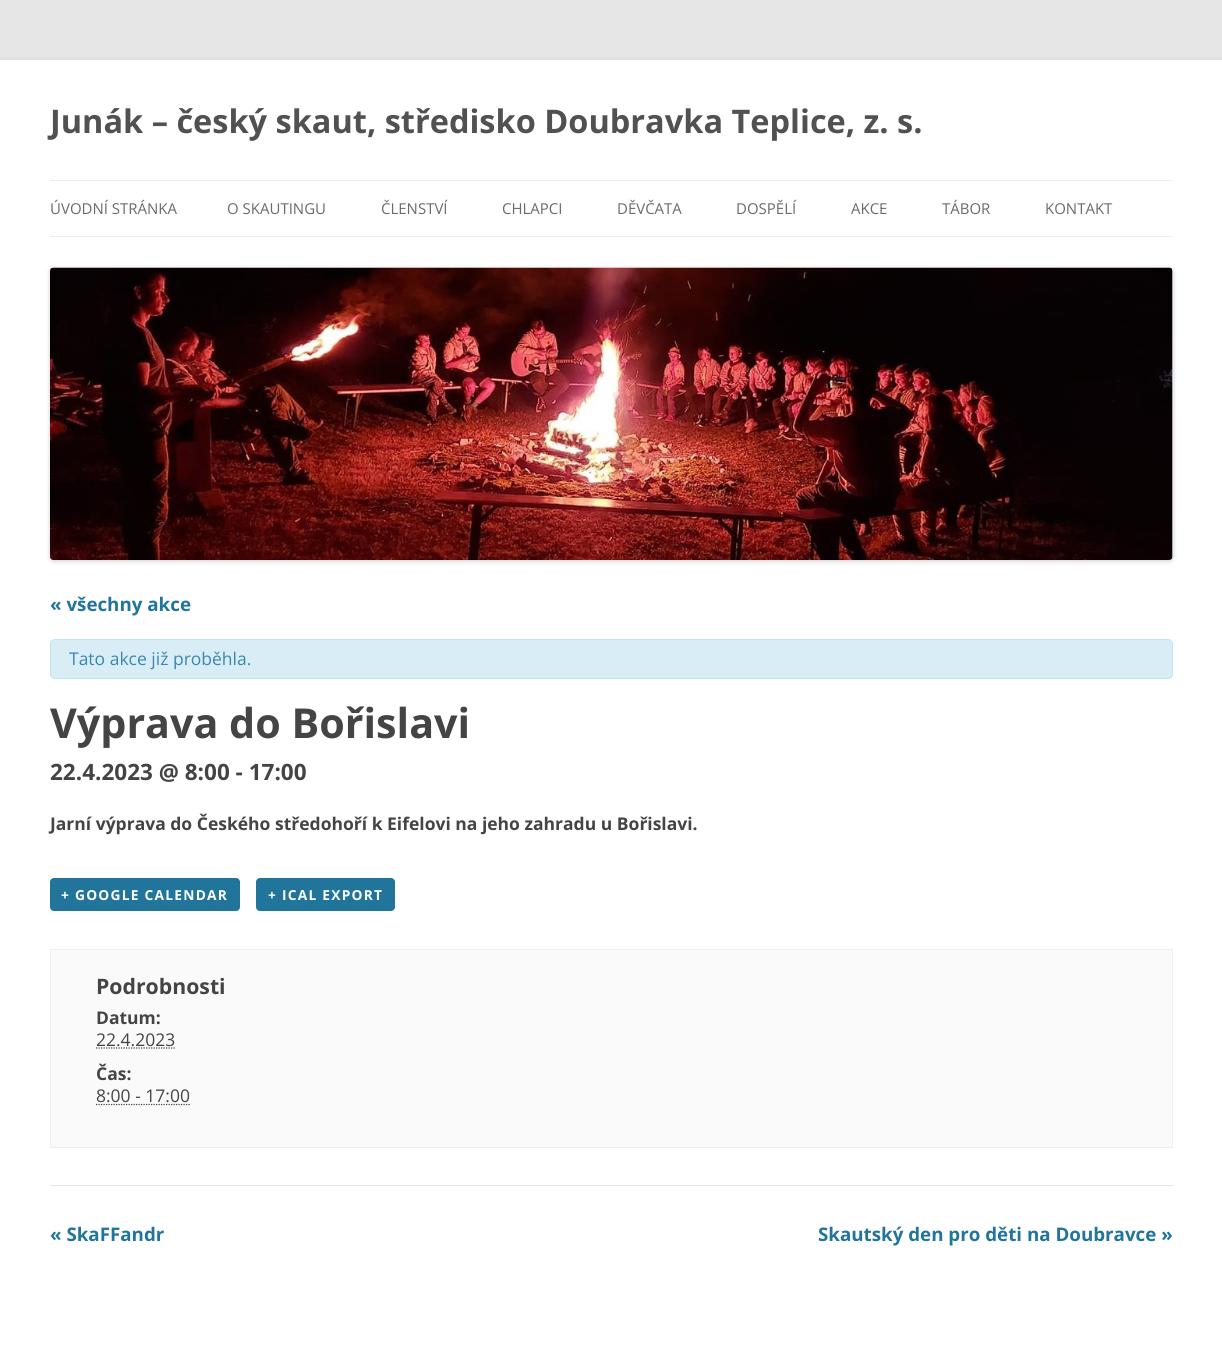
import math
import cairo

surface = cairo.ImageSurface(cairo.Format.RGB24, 1222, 1345)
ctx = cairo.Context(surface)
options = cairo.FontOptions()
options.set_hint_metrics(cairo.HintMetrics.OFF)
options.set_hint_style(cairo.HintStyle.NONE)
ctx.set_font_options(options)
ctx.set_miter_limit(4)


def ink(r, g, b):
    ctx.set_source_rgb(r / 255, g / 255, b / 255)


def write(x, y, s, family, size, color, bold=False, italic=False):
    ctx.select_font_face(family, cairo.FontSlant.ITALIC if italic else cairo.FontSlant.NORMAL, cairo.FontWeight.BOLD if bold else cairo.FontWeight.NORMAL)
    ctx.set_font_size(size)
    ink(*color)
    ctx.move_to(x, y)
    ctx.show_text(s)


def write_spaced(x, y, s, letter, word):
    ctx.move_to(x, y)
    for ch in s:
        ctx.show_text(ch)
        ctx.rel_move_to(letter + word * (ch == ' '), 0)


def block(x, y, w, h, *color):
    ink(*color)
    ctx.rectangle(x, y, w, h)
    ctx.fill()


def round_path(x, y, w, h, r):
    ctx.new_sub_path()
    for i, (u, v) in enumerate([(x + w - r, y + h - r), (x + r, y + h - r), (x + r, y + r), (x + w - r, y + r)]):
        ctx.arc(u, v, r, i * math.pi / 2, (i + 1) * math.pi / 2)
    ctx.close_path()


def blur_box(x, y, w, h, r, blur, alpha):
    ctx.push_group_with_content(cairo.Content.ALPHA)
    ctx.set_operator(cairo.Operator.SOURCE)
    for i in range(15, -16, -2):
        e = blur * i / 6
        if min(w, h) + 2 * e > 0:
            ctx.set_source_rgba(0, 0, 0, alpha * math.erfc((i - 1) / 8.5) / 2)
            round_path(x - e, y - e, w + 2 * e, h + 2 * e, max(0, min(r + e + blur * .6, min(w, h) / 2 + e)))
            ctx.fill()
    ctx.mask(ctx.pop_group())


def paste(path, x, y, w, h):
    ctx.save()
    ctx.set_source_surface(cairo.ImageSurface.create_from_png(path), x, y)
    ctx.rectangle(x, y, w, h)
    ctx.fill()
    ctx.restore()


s1 = dict(family="Open Sans", size=32.5, color=(81, 81, 81), bold=True)
s2 = dict(family="Open Sans", size=15, color=(106, 106, 106))
s3 = dict(family="Open Sans", size=18.75, color=(33, 117, 155), bold=True)
s4 = dict(family="Open Sans", size=17.5, color=(58, 135, 173))
s5 = dict(family="Open Sans", size=41.25, color=(68, 68, 68), bold=True)
s6 = dict(family="Open Sans", size=22.5, color=(68, 68, 68), bold=True)
s7 = dict(family="Open Sans", size=17.5, color=(68, 68, 68), bold=True)
s8 = dict(family="Open Sans", size=21.25, color=(68, 68, 68), bold=True)
s9 = dict(family="Open Sans", size=17.5, color=(68, 68, 68))

ink(230, 230, 230)
ctx.paint()
ink(100, 100, 100)
blur_box(0, 63, 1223, 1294, 0, 4, 0.3)
block(0, 60, 1222, 1285, 255, 255, 255)
write(50, 133, "Junák – český skaut, středisko Doubravka Teplice, z. s.", **s1)
block(50, 180, 1123, 1, 237, 237, 237)
block(50, 236, 1123, 1, 237, 237, 237)
write(50, 214, "ÚVODNÍ STRÁNKA", **s2)
write(227, 214, "O SKAUTINGU", **s2)
write(381, 214, "ČLENSTVÍ", **s2)
write(502, 214, "CHLAPCI", **s2)
write(617, 214, "DĚVČATA", **s2)
write(736, 214, "DOSPĚLÍ", **s2)
write(851, 214, "AKCE", **s2)
write(942, 214, "TÁBOR", **s2)
write(1045, 214, "KONTAKT", **s2)
ink(0, 0, 0)
blur_box(50, 269, 1123, 292, 4, 2.5, 0.2)
paste("pic1.png", 50, 267, 1123, 293)
write(50, 611, "« všechny akce", **s3)
ink(217, 237, 247)
round_path(50.5, 639.5, 1122, 39, 4.5)
ctx.fill_preserve()
ink(188, 232, 241)
ctx.set_line_width(1)
ctx.stroke()
write(69, 665, "Tato akce již proběhla.", **s4)
write(50, 738, "Výprava do Bořislavi", **s5)
write(50, 780, "22.4.2023 @ 8:00 - 17:00", **s6)
write(50, 830, "Jarní výprava do Českého středohoří k Eifelovi na jeho zahradu u Bořislavi.", **s7)
ink(33, 117, 155)
round_path(50, 878, 190, 33, 4)
ctx.fill()
ctx.set_font_size(13.75)
ink(255, 255, 255)
write_spaced(61, 900, "+ GOOGLE CALENDAR", 1.25, 0)
ink(33, 117, 155)
round_path(256, 878, 139, 33, 4)
ctx.fill()
ink(255, 255, 255)
write_spaced(268, 900, "+ ICAL EXPORT", 1.25, 0)
ink(250, 250, 250)
ctx.rectangle(50.5, 949.5, 1122, 198)
ctx.fill_preserve()
ink(238, 238, 238)
ctx.stroke()
write(96, 994, "Podrobnosti", **s8)
write(96, 1024, "Datum:", **s7)
write(96, 1046, "22.4.2023", **s9)
ctx.new_path()
ctx.move_to(96, 1048)
ctx.line_to(175.5, 1048)
ctx.set_line_width(1.2)
ctx.set_dash([1.25, 1.25])
ctx.stroke()
write(96, 1080, "Čas:", **s7)
write(96, 1102, "8:00 - 17:00", **s9)
ctx.new_path()
ctx.move_to(96, 1104.5)
ctx.line_to(190, 1104.5)
ctx.stroke()
block(50, 1185, 1123, 1, 229, 229, 229)
write(50, 1241, "« SkaFFandr", **s3)
write(818, 1241, "Skautský den pro děti na Doubravce »", **s3)
surface.write_to_png("screenshot.png")
